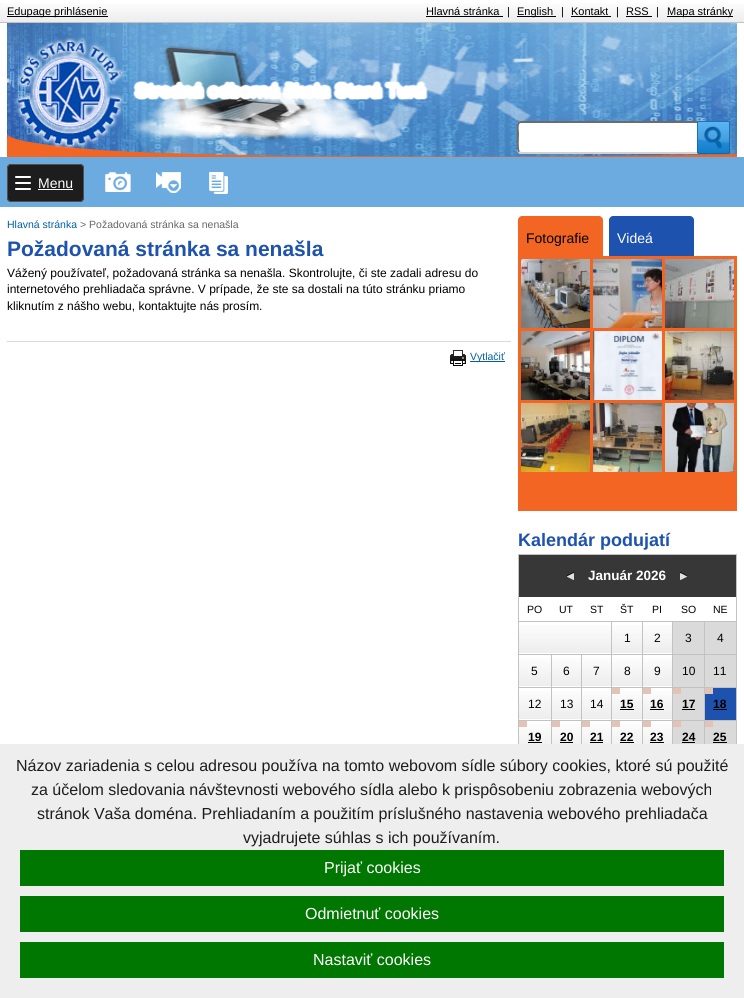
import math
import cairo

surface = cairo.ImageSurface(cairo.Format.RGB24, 744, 998)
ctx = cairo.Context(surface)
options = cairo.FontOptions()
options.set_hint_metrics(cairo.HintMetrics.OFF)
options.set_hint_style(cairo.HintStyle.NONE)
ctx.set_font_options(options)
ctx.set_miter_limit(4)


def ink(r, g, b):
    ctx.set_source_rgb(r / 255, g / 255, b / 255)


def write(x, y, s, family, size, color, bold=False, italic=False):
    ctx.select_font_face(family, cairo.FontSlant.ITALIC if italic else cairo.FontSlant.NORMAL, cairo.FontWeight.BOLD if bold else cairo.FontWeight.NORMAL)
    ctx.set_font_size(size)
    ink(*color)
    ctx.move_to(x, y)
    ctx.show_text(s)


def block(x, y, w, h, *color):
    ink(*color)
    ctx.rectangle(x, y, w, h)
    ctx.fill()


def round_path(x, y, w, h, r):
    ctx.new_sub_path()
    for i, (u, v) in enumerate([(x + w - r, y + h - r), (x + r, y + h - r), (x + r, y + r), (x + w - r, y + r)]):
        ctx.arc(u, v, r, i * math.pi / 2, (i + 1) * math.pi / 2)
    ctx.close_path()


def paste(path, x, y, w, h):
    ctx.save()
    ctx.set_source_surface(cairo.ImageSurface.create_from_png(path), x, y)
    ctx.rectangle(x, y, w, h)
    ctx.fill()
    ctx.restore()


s1 = dict(family="Liberation Sans", size=11, color=(0, 0, 0))
s2 = dict(family="Liberation Sans", size=14, color=(255, 255, 255))
s3 = dict(family="Liberation Sans", size=10.5, color=(3, 95, 160))
s4 = dict(family="Liberation Sans", size=10.5, color=(102, 102, 102))
s5 = dict(family="Liberation Sans", size=21, color=(29, 82, 174), bold=True)
s6 = dict(family="Liberation Sans", size=12, color=(0, 0, 0))
s7 = dict(family="Liberation Sans", size=14, color=(0, 0, 0))
s8 = dict(family="Liberation Sans", size=18, color=(29, 82, 174), bold=True)
s9 = dict(family="Liberation Sans", size=13.5, color=(255, 255, 255), bold=True)
s10 = dict(family="Liberation Sans", size=10.5, color=(0, 0, 0))
s11 = dict(family="Liberation Sans", size=12, color=(0, 0, 0), bold=True)
s12 = dict(family="Liberation Sans", size=16, color=(29, 29, 27))
s13 = dict(family="Liberation Sans", size=16, color=(255, 255, 255))

ink(255, 255, 255)
ctx.paint()
gradient = cairo.LinearGradient(372, 0, 372, 22)
gradient.add_color_stop_rgba(0, 1, 1, 1, 1)
gradient.add_color_stop_rgba(0.47, 0.965, 0.965, 0.965, 1)
gradient.add_color_stop_rgba(1, 0.929, 0.929, 0.929, 1)
ctx.set_source(gradient)
ctx.rectangle(0, 3, 744, 19)
ctx.fill()
block(0, 22, 744, 1, 194, 194, 194)
block(7, 16, 101, 1, 0, 0, 0)
write(7, 15, "Edupage prihlásenie", **s1)
write(426, 15, "Hlavná stránka", **s1)
block(426, 16, 77, 1, 0, 0, 0)
write(507, 15, "|", **s1)
block(517, 16, 39, 1, 0, 0, 0)
write(517, 15, "English", **s1)
write(561, 15, "|", **s1)
write(571, 15, "Kontakt", **s1)
block(571, 16, 40, 1, 0, 0, 0)
write(616, 15, "|", **s1)
write(626, 15, "RSS", **s1)
block(626, 16, 26, 1, 0, 0, 0)
write(656, 15, "|", **s1)
block(667, 16, 66, 1, 0, 0, 0)
write(667, 15, "Mapa stránky", **s1)
paste("pic1.png", 7, 23, 730, 134)
ink(255, 255, 255)
round_path(517, 121, 184, 33, 4)
ctx.fill()
ctx.new_path()
ctx.move_to(699, 123)
ctx.curve_to(701, 125, 700, 138.5, 700, 141.5)
ctx.curve_to(700, 144, 702, 153, 697, 153)
ctx.line_to(521, 153)
ctx.line_to(519, 152)
ink(210, 210, 210)
ctx.stroke()
ctx.new_path()
ctx.move_to(519, 152)
ctx.curve_to(517, 150, 518, 136.5, 518, 133.5)
ctx.curve_to(518, 131, 516, 122, 521, 122)
ctx.line_to(697, 122)
ctx.line_to(699, 123)
ink(108, 108, 108)
ctx.stroke()
paste("pic2.png", 697, 121, 33, 33)
block(0, 157, 744, 50, 107, 171, 224)
ink(29, 29, 29)
round_path(7, 164, 77, 38, 4)
ctx.fill()
paste("pic3.png", 15, 176, 16, 14)
round_path(7.5, 164.5, 76, 37, 3.5)
ink(80, 78, 78)
ctx.set_line_width(1)
ctx.stroke()
write(38, 188, "Menu", **s2)
block(38, 189, 35, 1, 255, 255, 255)
paste("pic4.png", 105, 172, 26, 20)
paste("pic5.png", 156, 172, 25, 21)
paste("pic6.png", 209, 172, 19, 22)
write(7, 228, "Hlavná stránka", **s3)
write(80, 228, "> Požadovaná stránka sa nenašla", **s4)
write(7, 256, "Požadovaná stránka sa nenašla", **s5)
write(7, 277, "Vážený používateľ, požadovaná stránka sa nenašla. Skontrolujte, či ste zadali adresu do", **s6)
write(7, 293, "internetového prehliadača správne. V prípade, že ste sa dostali na túto stránku priamo", **s6)
write(7, 310, "kliknutím z nášho webu, kontaktujte nás prosím.", **s6)
block(7, 341, 504, 1, 218, 218, 218)
paste("pic7.png", 450, 350, 16, 16)
block(470, 361, 35, 1, 3, 95, 160)
write(470, 360, "Vytlačiť", **s3)
ink(243, 101, 35)
ctx.new_path()
ctx.move_to(522, 216)
ctx.line_to(599, 216)
ctx.curve_to(601, 216, 603, 218, 603, 220)
ctx.line_to(603, 256)
ctx.line_to(518, 256)
ctx.line_to(518, 220)
ctx.curve_to(518, 218, 520, 216, 522, 216)
ctx.close_path()
ctx.fill()
write(526, 243, "Fotografie", **s7)
ink(29, 82, 174)
ctx.new_path()
ctx.move_to(613, 216)
ctx.line_to(690, 216)
ctx.curve_to(692, 216, 694, 218, 694, 220)
ctx.line_to(694, 256)
ctx.line_to(609, 256)
ctx.line_to(609, 220)
ctx.curve_to(609, 218, 611, 216, 613, 216)
ctx.close_path()
ctx.fill()
write(617, 243, "Videá", **s2)
block(518, 256, 219, 255, 243, 101, 35)
paste("pic8.png", 521, 259, 69, 69)
paste("pic9.png", 593, 259, 69, 69)
paste("pic10.png", 665, 259, 69, 69)
paste("pic11.png", 521, 331, 69, 69)
paste("pic12.png", 593, 331, 69, 69)
paste("pic13.png", 665, 331, 69, 69)
paste("pic14.png", 521, 403, 69, 69)
paste("pic15.png", 593, 403, 69, 69)
paste("pic16.png", 665, 403, 69, 69)
write(518, 546, "Kalendár podujatí", **s8)
block(518, 554, 219, 1, 194, 194, 194)
block(736, 554, 1, 190, 194, 194, 194)
block(518, 554, 1, 190, 194, 194, 194)
block(519, 555, 217, 42, 55, 55, 55)
paste("pic17.png", 567, 572, 7, 8)
write(588, 580, "Január 2026", **s9)
paste("pic18.png", 680, 572, 7, 8)
block(518, 621, 219, 1, 194, 194, 194)
write(527, 613, "PO", **s10)
write(559, 613, "UT", **s10)
write(590, 613, "ST", **s10)
write(620, 613, "ŠT", **s10)
write(652, 613, "PI", **s10)
write(681, 613, "SO", **s10)
write(713, 613, "NE", **s10)
gradient = cairo.LinearGradient(565, 621, 565, 653)
gradient.add_color_stop_rgba(0, 1, 1, 1, 1)
gradient.add_color_stop_rgba(0.47, 0.965, 0.965, 0.965, 1)
gradient.add_color_stop_rgba(1, 0.929, 0.929, 0.929, 1)
ctx.set_source(gradient)
ctx.rectangle(519, 625, 92, 28)
ctx.fill()
block(704, 720, 1, 24, 194, 194, 194)
block(704, 720, 33, 1, 194, 194, 194)
block(704, 687, 1, 34, 194, 194, 194)
block(704, 687, 33, 1, 194, 194, 194)
block(704, 654, 1, 34, 194, 194, 194)
block(704, 654, 33, 1, 194, 194, 194)
block(704, 621, 1, 34, 194, 194, 194)
block(672, 720, 1, 24, 194, 194, 194)
block(672, 720, 33, 1, 194, 194, 194)
block(672, 687, 1, 34, 194, 194, 194)
block(672, 687, 33, 1, 194, 194, 194)
block(672, 654, 1, 34, 194, 194, 194)
block(672, 654, 33, 1, 194, 194, 194)
block(672, 621, 1, 34, 194, 194, 194)
block(642, 720, 1, 24, 194, 194, 194)
block(642, 720, 31, 1, 194, 194, 194)
block(642, 687, 1, 34, 194, 194, 194)
block(642, 687, 31, 1, 194, 194, 194)
block(642, 654, 1, 34, 194, 194, 194)
block(642, 654, 31, 1, 194, 194, 194)
block(642, 621, 1, 34, 194, 194, 194)
block(611, 720, 1, 24, 194, 194, 194)
block(611, 720, 32, 1, 194, 194, 194)
block(611, 687, 1, 34, 194, 194, 194)
block(611, 687, 32, 1, 194, 194, 194)
block(611, 654, 1, 34, 194, 194, 194)
block(611, 654, 32, 1, 194, 194, 194)
block(611, 621, 1, 34, 194, 194, 194)
block(581, 720, 1, 24, 194, 194, 194)
block(581, 720, 31, 1, 194, 194, 194)
block(581, 687, 1, 34, 194, 194, 194)
block(581, 687, 31, 1, 194, 194, 194)
block(581, 654, 1, 34, 194, 194, 194)
block(551, 720, 1, 24, 194, 194, 194)
block(551, 720, 31, 1, 194, 194, 194)
block(551, 687, 1, 34, 194, 194, 194)
block(551, 687, 31, 1, 194, 194, 194)
block(551, 654, 1, 34, 194, 194, 194)
block(518, 654, 94, 1, 194, 194, 194)
gradient = cairo.LinearGradient(627, 621, 627, 653)
gradient.add_color_stop_rgba(0, 1, 1, 1, 1)
gradient.add_color_stop_rgba(0.47, 0.965, 0.965, 0.965, 1)
gradient.add_color_stop_rgba(1, 0.929, 0.929, 0.929, 1)
ctx.set_source(gradient)
ctx.rectangle(612, 625, 30, 28)
ctx.fill()
write(624, 642, "1", **s6)
gradient = cairo.LinearGradient(657, 621, 657, 653)
gradient.add_color_stop_rgba(0, 1, 1, 1, 1)
gradient.add_color_stop_rgba(0.47, 0.965, 0.965, 0.965, 1)
gradient.add_color_stop_rgba(1, 0.929, 0.929, 0.929, 1)
ctx.set_source(gradient)
ctx.rectangle(643, 625, 29, 28)
ctx.fill()
write(654, 642, "2", **s6)
block(673, 622, 31, 32, 218, 218, 218)
write(685, 642, "3", **s6)
block(705, 622, 31, 32, 218, 218, 218)
write(717, 642, "4", **s6)
gradient = cairo.LinearGradient(534, 654, 534, 686)
gradient.add_color_stop_rgba(0, 1, 1, 1, 1)
gradient.add_color_stop_rgba(0.47, 0.965, 0.965, 0.965, 1)
gradient.add_color_stop_rgba(1, 0.929, 0.929, 0.929, 1)
ctx.set_source(gradient)
ctx.rectangle(519, 658, 32, 28)
ctx.fill()
block(518, 687, 34, 1, 194, 194, 194)
write(531, 675, "5", **s6)
gradient = cairo.LinearGradient(566, 654, 566, 686)
gradient.add_color_stop_rgba(0, 1, 1, 1, 1)
gradient.add_color_stop_rgba(0.47, 0.965, 0.965, 0.965, 1)
gradient.add_color_stop_rgba(1, 0.929, 0.929, 0.929, 1)
ctx.set_source(gradient)
ctx.rectangle(552, 658, 29, 28)
ctx.fill()
write(563, 675, "6", **s6)
gradient = cairo.LinearGradient(597, 654, 597, 686)
gradient.add_color_stop_rgba(0, 1, 1, 1, 1)
gradient.add_color_stop_rgba(0.47, 0.965, 0.965, 0.965, 1)
gradient.add_color_stop_rgba(1, 0.929, 0.929, 0.929, 1)
ctx.set_source(gradient)
ctx.rectangle(582, 658, 29, 28)
ctx.fill()
write(593, 675, "7", **s6)
gradient = cairo.LinearGradient(627, 654, 627, 686)
gradient.add_color_stop_rgba(0, 1, 1, 1, 1)
gradient.add_color_stop_rgba(0.47, 0.965, 0.965, 0.965, 1)
gradient.add_color_stop_rgba(1, 0.929, 0.929, 0.929, 1)
ctx.set_source(gradient)
ctx.rectangle(612, 658, 30, 28)
ctx.fill()
write(624, 675, "8", **s6)
gradient = cairo.LinearGradient(657, 654, 657, 686)
gradient.add_color_stop_rgba(0, 1, 1, 1, 1)
gradient.add_color_stop_rgba(0.47, 0.965, 0.965, 0.965, 1)
gradient.add_color_stop_rgba(1, 0.929, 0.929, 0.929, 1)
ctx.set_source(gradient)
ctx.rectangle(643, 658, 29, 28)
ctx.fill()
write(654, 675, "9", **s6)
block(673, 655, 31, 32, 218, 218, 218)
write(682, 675, "10", **s6)
block(705, 655, 31, 32, 218, 218, 218)
write(713, 675, "11", **s6)
gradient = cairo.LinearGradient(534, 687, 534, 719)
gradient.add_color_stop_rgba(0, 1, 1, 1, 1)
gradient.add_color_stop_rgba(0.47, 0.965, 0.965, 0.965, 1)
gradient.add_color_stop_rgba(1, 0.929, 0.929, 0.929, 1)
ctx.set_source(gradient)
ctx.rectangle(519, 691, 32, 28)
ctx.fill()
block(518, 720, 34, 1, 194, 194, 194)
write(528, 708, "12", **s6)
gradient = cairo.LinearGradient(566, 687, 566, 719)
gradient.add_color_stop_rgba(0, 1, 1, 1, 1)
gradient.add_color_stop_rgba(0.47, 0.965, 0.965, 0.965, 1)
gradient.add_color_stop_rgba(1, 0.929, 0.929, 0.929, 1)
ctx.set_source(gradient)
ctx.rectangle(552, 691, 29, 28)
ctx.fill()
write(560, 708, "13", **s6)
gradient = cairo.LinearGradient(597, 687, 597, 719)
gradient.add_color_stop_rgba(0, 1, 1, 1, 1)
gradient.add_color_stop_rgba(0.47, 0.965, 0.965, 0.965, 1)
gradient.add_color_stop_rgba(1, 0.929, 0.929, 0.929, 1)
ctx.set_source(gradient)
ctx.rectangle(582, 691, 29, 28)
ctx.fill()
write(590, 708, "14", **s6)
gradient = cairo.LinearGradient(627, 687, 627, 719)
gradient.add_color_stop_rgba(0, 1, 1, 1, 1)
gradient.add_color_stop_rgba(0.47, 0.965, 0.965, 0.965, 1)
gradient.add_color_stop_rgba(1, 0.929, 0.929, 0.929, 1)
ctx.set_source(gradient)
ctx.rectangle(612, 691, 30, 28)
ctx.fill()
block(612, 688, 8, 6, 227, 195, 182)
write(620, 708, "15", **s11)
block(620, 709, 14, 1, 0, 0, 0)
gradient = cairo.LinearGradient(657, 687, 657, 719)
gradient.add_color_stop_rgba(0, 1, 1, 1, 1)
gradient.add_color_stop_rgba(0.47, 0.965, 0.965, 0.965, 1)
gradient.add_color_stop_rgba(1, 0.929, 0.929, 0.929, 1)
ctx.set_source(gradient)
ctx.rectangle(643, 691, 29, 28)
ctx.fill()
block(643, 688, 8, 6, 227, 195, 182)
write(650, 708, "16", **s11)
block(650, 709, 14, 1, 0, 0, 0)
block(673, 688, 31, 32, 218, 218, 218)
block(673, 688, 8, 6, 227, 195, 182)
write(682, 708, "17", **s11)
block(682, 709, 13, 1, 0, 0, 0)
block(705, 688, 31, 32, 29, 82, 174)
block(705, 688, 8, 6, 227, 195, 182)
write(713, 708, "18", **s11)
block(713, 709, 14, 1, 0, 0, 0)
gradient = cairo.LinearGradient(534, 720, 534, 752)
gradient.add_color_stop_rgba(0, 1, 1, 1, 1)
gradient.add_color_stop_rgba(0.47, 0.965, 0.965, 0.965, 1)
gradient.add_color_stop_rgba(1, 0.929, 0.929, 0.929, 1)
ctx.set_source(gradient)
ctx.rectangle(519, 724, 32, 20)
ctx.fill()
block(519, 721, 8, 6, 227, 195, 182)
write(528, 741, "19", **s11)
block(528, 742, 14, 1, 0, 0, 0)
gradient = cairo.LinearGradient(566, 720, 566, 752)
gradient.add_color_stop_rgba(0, 1, 1, 1, 1)
gradient.add_color_stop_rgba(0.47, 0.965, 0.965, 0.965, 1)
gradient.add_color_stop_rgba(1, 0.929, 0.929, 0.929, 1)
ctx.set_source(gradient)
ctx.rectangle(552, 724, 29, 20)
ctx.fill()
block(552, 721, 8, 6, 227, 195, 182)
write(560, 741, "20", **s11)
block(560, 742, 13, 1, 0, 0, 0)
gradient = cairo.LinearGradient(597, 720, 597, 752)
gradient.add_color_stop_rgba(0, 1, 1, 1, 1)
gradient.add_color_stop_rgba(0.47, 0.965, 0.965, 0.965, 1)
gradient.add_color_stop_rgba(1, 0.929, 0.929, 0.929, 1)
ctx.set_source(gradient)
ctx.rectangle(582, 724, 29, 20)
ctx.fill()
block(582, 721, 8, 6, 227, 195, 182)
write(590, 741, "21", **s11)
block(590, 742, 13, 1, 0, 0, 0)
gradient = cairo.LinearGradient(627, 720, 627, 752)
gradient.add_color_stop_rgba(0, 1, 1, 1, 1)
gradient.add_color_stop_rgba(0.47, 0.965, 0.965, 0.965, 1)
gradient.add_color_stop_rgba(1, 0.929, 0.929, 0.929, 1)
ctx.set_source(gradient)
ctx.rectangle(612, 724, 30, 20)
ctx.fill()
block(612, 721, 8, 6, 227, 195, 182)
write(620, 741, "22", **s11)
block(620, 742, 14, 1, 0, 0, 0)
gradient = cairo.LinearGradient(657, 720, 657, 752)
gradient.add_color_stop_rgba(0, 1, 1, 1, 1)
gradient.add_color_stop_rgba(0.47, 0.965, 0.965, 0.965, 1)
gradient.add_color_stop_rgba(1, 0.929, 0.929, 0.929, 1)
ctx.set_source(gradient)
ctx.rectangle(643, 724, 29, 20)
ctx.fill()
block(643, 721, 8, 6, 227, 195, 182)
write(650, 741, "23", **s11)
block(650, 742, 14, 1, 0, 0, 0)
block(673, 721, 31, 23, 218, 218, 218)
block(673, 721, 8, 6, 227, 195, 182)
write(682, 741, "24", **s11)
block(682, 742, 13, 1, 0, 0, 0)
block(705, 721, 31, 23, 218, 218, 218)
block(705, 721, 8, 6, 227, 195, 182)
write(713, 741, "25", **s11)
block(713, 742, 14, 1, 0, 0, 0)
block(0, 744, 744, 254, 238, 238, 238)
write(16, 771, "Názov zariadenia s celou adresou používa na tomto webovom sídle súbory cookies, ktoré sú použité", **s12)
write(31, 795, "za účelom sledovania návštevnosti webového sídla alebo k prispôsobeniu zobrazenia webových", **s12)
write(37, 819, "stránok Vaša doména. Prehliadaním a použitím príslušného nastavenia webového prehliadača", **s12)
write(243, 843, "vyjadrujete súhlas s ich používaním.", **s12)
block(20, 850, 704, 36, 0, 119, 0)
write(324, 873, "Prijať cookies", **s13)
block(20, 896, 704, 36, 0, 119, 0)
write(305, 919, "Odmietnuť cookies", **s13)
block(20, 942, 704, 36, 0, 119, 0)
write(313, 965, "Nastaviť cookies", **s13)
surface.write_to_png("screenshot.png")
